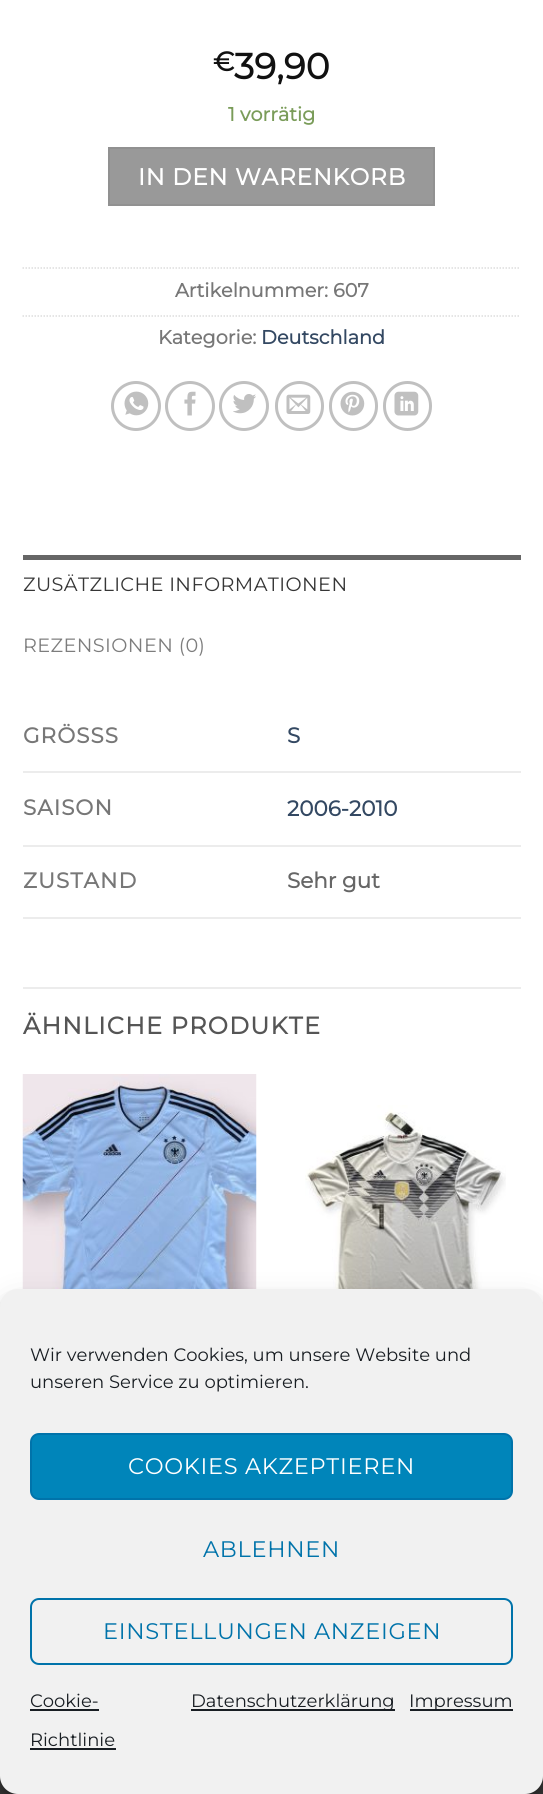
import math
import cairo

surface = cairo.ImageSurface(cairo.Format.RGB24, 543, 1794)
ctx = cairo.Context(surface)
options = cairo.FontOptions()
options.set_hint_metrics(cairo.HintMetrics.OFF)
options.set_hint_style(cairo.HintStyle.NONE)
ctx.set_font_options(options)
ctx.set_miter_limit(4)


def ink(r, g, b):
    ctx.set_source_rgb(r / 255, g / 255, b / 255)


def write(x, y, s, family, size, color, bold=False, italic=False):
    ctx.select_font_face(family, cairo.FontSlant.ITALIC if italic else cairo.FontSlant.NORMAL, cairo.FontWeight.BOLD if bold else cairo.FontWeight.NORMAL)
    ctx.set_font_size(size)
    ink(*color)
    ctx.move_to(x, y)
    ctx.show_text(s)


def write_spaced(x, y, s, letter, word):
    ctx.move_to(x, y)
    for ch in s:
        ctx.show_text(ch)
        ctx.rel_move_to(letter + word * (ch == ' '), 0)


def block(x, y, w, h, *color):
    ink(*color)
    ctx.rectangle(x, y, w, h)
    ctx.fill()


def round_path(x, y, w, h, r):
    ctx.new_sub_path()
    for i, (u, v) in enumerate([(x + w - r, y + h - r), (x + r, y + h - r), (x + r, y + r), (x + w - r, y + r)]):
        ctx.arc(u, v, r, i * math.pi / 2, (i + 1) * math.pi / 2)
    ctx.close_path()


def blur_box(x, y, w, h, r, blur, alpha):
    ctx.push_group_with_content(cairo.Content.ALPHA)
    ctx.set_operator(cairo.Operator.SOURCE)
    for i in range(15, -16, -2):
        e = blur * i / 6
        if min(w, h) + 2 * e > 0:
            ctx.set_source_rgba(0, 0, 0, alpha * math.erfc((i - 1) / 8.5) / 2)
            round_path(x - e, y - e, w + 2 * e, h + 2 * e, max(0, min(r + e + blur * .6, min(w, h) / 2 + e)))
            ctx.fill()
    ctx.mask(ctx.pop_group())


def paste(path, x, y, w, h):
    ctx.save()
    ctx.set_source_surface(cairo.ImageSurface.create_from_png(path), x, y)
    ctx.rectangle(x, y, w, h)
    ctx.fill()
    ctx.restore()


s1 = dict(family="Montserrat", size=27, color=(17, 17, 17), bold=True)
s2 = dict(family="Montserrat", size=36, color=(17, 17, 17), bold=True)
s3 = dict(family="Montserrat", size=19.25, color=(122, 156, 89), bold=True)
s4 = dict(family="Montserrat", size=19.25, color=(119, 119, 119), bold=True)
s5 = dict(family="Montserrat", size=19.25, color=(51, 72, 98), bold=True)
s6 = dict(family="Montserrat", size=21.5, color=(51, 72, 98), bold=True)
s7 = dict(family="Montserrat", size=21.5, color=(102, 102, 102), bold=True)
s8 = dict(family="Montserrat Thin", size=18, color=(25, 30, 35))

ink(255, 255, 255)
ctx.paint()
write(213, 71, "€", **s1)
write(234, 79, "39,90", **s2)
write(228, 121, "1 vorrätig", **s3)
ink(153, 153, 153)
ctx.rectangle(109, 148, 325, 57)
ctx.fill_preserve()
ink(145, 145, 145)
ctx.stroke()
ctx.set_font_size(23.25)
ink(255, 255, 255)
write_spaced(138, 185, "IN DEN WARENKORB", 0.75, 0)
ctx.new_path()
ctx.move_to(22.5, 268)
ctx.line_to(520.5, 268)
ink(221, 221, 221)
ctx.set_line_width(1.5)
ctx.set_dash([1.5, 1.5])
ctx.stroke()
write(175, 297, "Artikelnummer: 607", **s4)
ctx.new_path()
ctx.move_to(22.5, 316)
ctx.line_to(520.5, 316)
ink(221, 221, 221)
ctx.stroke()
write(158, 344, "Kategorie:", **s4)
write(261, 344, "Deutschland", **s5)
ctx.new_path()
ctx.arc(136, 406, 23.5, 0, 2 * math.pi)
ink(192, 192, 192)
ctx.set_line_width(3)
ctx.set_dash([])
ctx.stroke()
paste("pic1.png", 124, 391, 25, 25)
ctx.arc(190, 406, 23.5, 0, 2 * math.pi)
ctx.stroke()
paste("pic2.png", 184, 391, 12, 25)
ctx.arc(244, 406, 23.5, 0, 2 * math.pi)
ctx.stroke()
paste("pic3.png", 233, 394, 23, 20)
round_path(276.5, 382.5, 46, 47, 23)
ctx.stroke()
paste("pic4.png", 286, 394, 25, 20)
round_path(330.5, 382.5, 46, 47, 23)
ctx.stroke()
paste("pic5.png", 340, 391, 25, 25)
round_path(384.5, 382.5, 46, 47, 23)
ctx.stroke()
paste("pic6.png", 394, 391, 25, 25)
block(23, 555, 498, 5, 102, 102, 102)
ctx.select_font_face("Montserrat Thin")
ink(54, 54, 54)
write_spaced(23, 591, "ZUSÄTZLICHE INFORMATIONEN", 0.4, 0)
ink(125, 125, 125)
write_spaced(23, 652, "REZENSIONEN (0)", 0.4, 0)
block(23, 771, 498, 2, 236, 236, 236)
ctx.select_font_face("Montserrat", cairo.FontSlant.NORMAL, cairo.FontWeight.BOLD)
ctx.set_font_size(21.5)
ink(119, 119, 119)
write_spaced(23, 743, "GRÖSSS", 1, 0)
write(287, 743, "S", **s6)
block(23, 845, 498, 2, 236, 236, 236)
ink(119, 119, 119)
write_spaced(23, 815, "SAISON", 1, 0)
write(287, 816, "2006-2010", **s6)
block(23, 917, 498, 2, 236, 236, 236)
ink(119, 119, 119)
write_spaced(23, 888, "ZUSTAND", 1, 0)
write(287, 888, "Sehr gut", **s7)
block(23, 987, 498, 2, 236, 236, 236)
ctx.set_font_size(24)
ink(85, 85, 85)
write_spaced(23, 1034, "ÄHNLICHE PRODUKTE", 1.25, 0)
paste("pic7.png", 22, 1074, 235, 215)
paste("pic8.png", 305, 1105, 201, 184)
block(0, 1776, 543, 18, 56, 56, 56)
ink(0, 0, 0)
blur_box(0, 1298, 543, 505, 18, 4.5, 0.23)
blur_box(0, 1304, 543, 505, 18, 15, 0.19)
ink(241, 241, 241)
round_path(0, 1289, 543, 505, 18)
ctx.fill()
write(30, 1361, "Wir verwenden Cookies, um unsere Website und", **s8)
write(30, 1388, "unseren Service zu optimieren.", **s8)
ink(0, 133, 186)
round_path(31, 1434, 481, 65, 8)
ctx.fill_preserve()
ink(0, 115, 170)
ctx.set_line_width(2)
ctx.stroke()
ctx.set_font_size(22.5)
ink(255, 255, 255)
write_spaced(128, 1474, "COOKIES AKZEPTIEREN", 0.7, 0)
ink(0, 115, 170)
write_spaced(203, 1557, "ABLEHNEN", 0.7, 0)
round_path(31, 1599, 481, 65, 8)
ctx.stroke()
write_spaced(103, 1639, "EINSTELLUNGEN ANZEIGEN", 0.7, 0)
write(30, 1707, "Cookie-", **s8)
block(30, 1709, 69, 2, 25, 30, 35)
write(30, 1746, "Richtlinie", **s8)
block(30, 1748, 86, 2, 25, 30, 35)
block(191, 1709, 204, 2, 25, 30, 35)
write(191, 1707, "Datenschutzerklärung", **s8)
block(410, 1709, 103, 2, 25, 30, 35)
write(409, 1707, "Impressum", **s8)
surface.write_to_png("screenshot.png")
